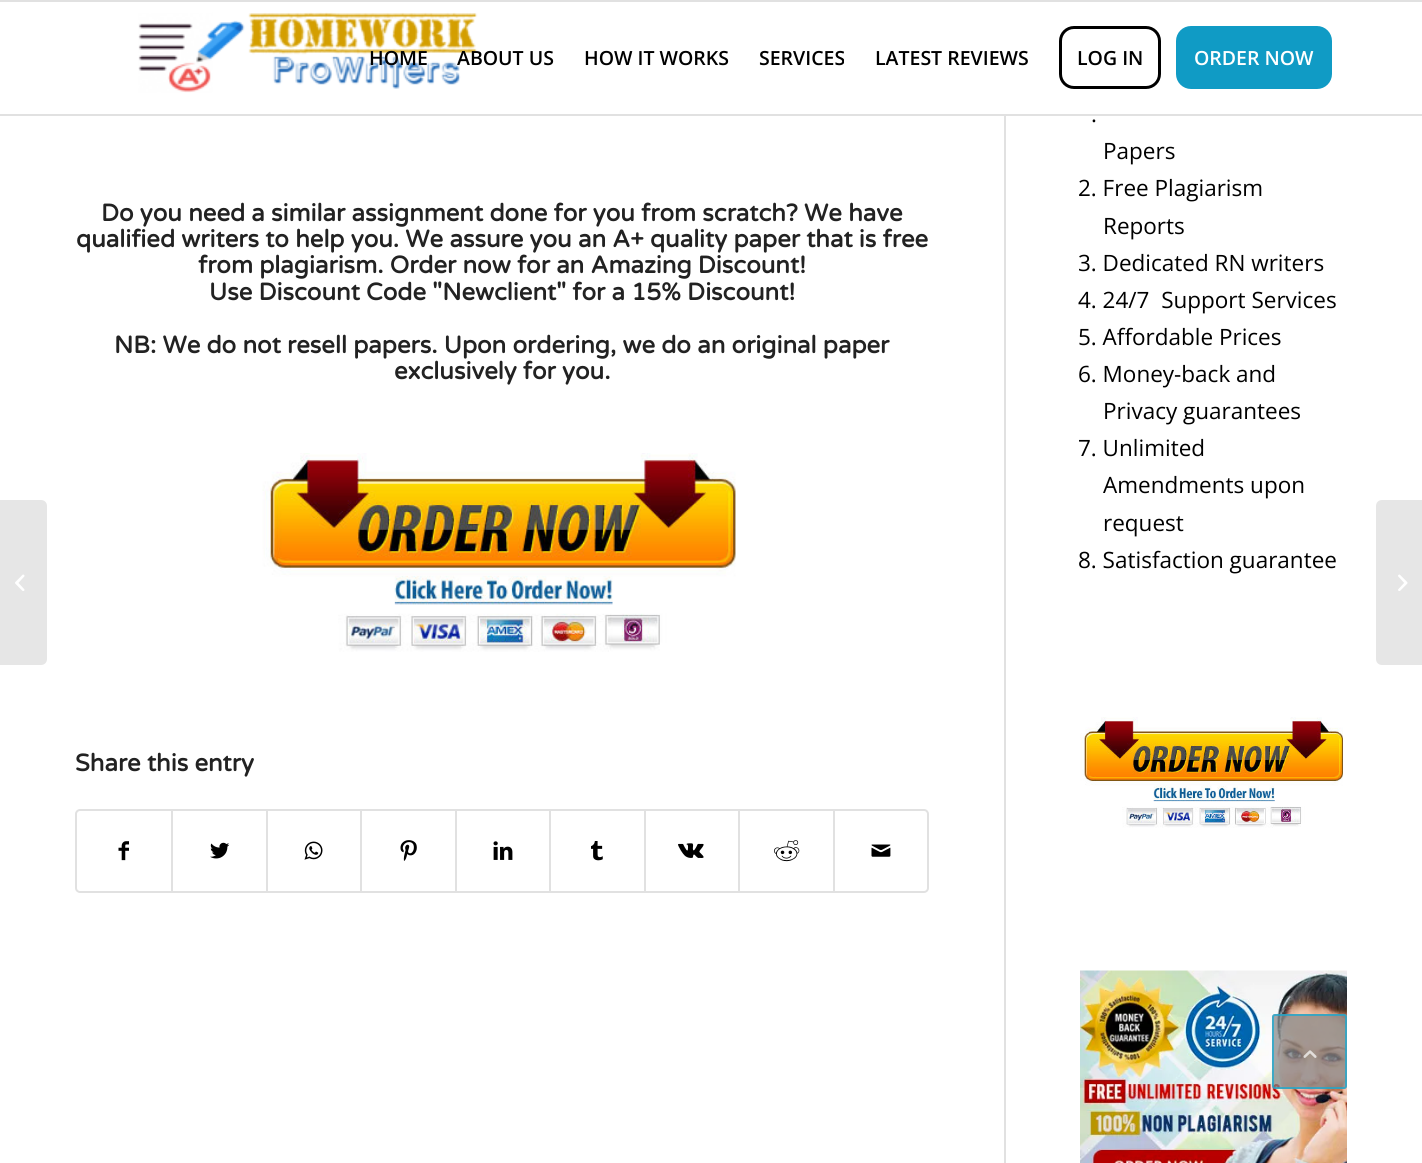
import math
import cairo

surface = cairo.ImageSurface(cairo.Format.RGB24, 1422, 1163)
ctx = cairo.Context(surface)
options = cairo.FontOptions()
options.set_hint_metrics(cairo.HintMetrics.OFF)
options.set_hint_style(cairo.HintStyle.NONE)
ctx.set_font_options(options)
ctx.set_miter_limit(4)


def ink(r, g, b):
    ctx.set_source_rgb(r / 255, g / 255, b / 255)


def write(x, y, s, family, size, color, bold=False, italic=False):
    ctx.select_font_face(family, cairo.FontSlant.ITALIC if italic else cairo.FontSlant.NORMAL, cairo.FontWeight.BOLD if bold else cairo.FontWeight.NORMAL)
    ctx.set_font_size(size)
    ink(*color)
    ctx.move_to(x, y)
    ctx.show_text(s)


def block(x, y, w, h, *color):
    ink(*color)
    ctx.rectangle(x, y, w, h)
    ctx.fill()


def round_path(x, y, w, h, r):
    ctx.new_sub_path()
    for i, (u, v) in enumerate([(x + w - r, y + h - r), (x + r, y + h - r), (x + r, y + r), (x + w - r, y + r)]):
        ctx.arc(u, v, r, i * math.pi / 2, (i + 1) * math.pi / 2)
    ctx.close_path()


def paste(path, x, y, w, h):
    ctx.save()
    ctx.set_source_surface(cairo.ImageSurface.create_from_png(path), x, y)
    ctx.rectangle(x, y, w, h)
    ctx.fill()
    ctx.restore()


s1 = dict(family="Open Sans SemiBold", size=19.5, color=(0, 0, 0))
s2 = dict(family="Open Sans SemiBold", size=19.5, color=(255, 255, 255))
s3 = dict(family="Varela Round", size=24, color=(34, 34, 34), bold=True)
s4 = dict(family="Open Sans", size=22.5, color=(0, 0, 0))

ink(255, 255, 255)
ctx.paint()
block(0, 0, 1422, 2, 225, 225, 225)
block(0, 114, 1422, 2, 225, 225, 225)
paste("pic1.png", 138, 12, 340, 81)
write(369, 65, "HOME", **s1)
write(457, 65, "ABOUT US", **s1)
write(584, 65, "HOW IT WORKS", **s1)
write(759, 65, "SERVICES", **s1)
write(875, 65, "LATEST REVIEWS", **s1)
round_path(1060.5, 27.5, 99, 60, 13.5)
ctx.set_line_width(3)
ctx.stroke()
write(1077, 65, "LOG IN", **s1)
ink(16, 155, 197)
round_path(1177.5, 27.5, 153, 60, 13.5)
ctx.fill_preserve()
ctx.stroke()
write(1194, 65, "ORDER NOW", **s2)
ink(230, 230, 230)
ctx.new_path()
ctx.move_to(0, 500)
ctx.line_to(41, 500)
ctx.curve_to(44.5, 500, 47, 502.5, 47, 506)
ctx.line_to(47, 659)
ctx.curve_to(47, 662.5, 44.5, 665, 41, 665)
ctx.line_to(0, 665)
ctx.close_path()
ctx.fill()
paste("pic2.png", 15, 574, 10, 17)
write(101, 221, "Do you need a similar assignment done for you from scratch? We have", **s3)
write(76, 247, "qualified writers to help you. We assure you an A+ quality paper that is free", **s3)
write(198, 273, "from plagiarism. Order now for an Amazing Discount!", **s3)
write(209, 300, "Use Discount Code \"Newclient\" for a 15% Discount!", **s3)
write(114, 353, "NB: We do not resell papers. Upon ordering, we do an original paper", **s3)
write(394, 379, "exclusively for you.", **s3)
paste("pic3.png", 262, 453, 474, 199)
write(75, 771, "Share this entry", **s3)
round_path(76, 810, 852, 82, 4)
ink(225, 225, 225)
ctx.set_line_width(2)
ctx.stroke()
paste("pic4.png", 118, 841, 11, 20)
block(171, 810, 2, 81, 225, 225, 225)
paste("pic5.png", 210, 842, 20, 17)
block(266, 810, 2, 81, 225, 225, 225)
paste("pic6.png", 304, 841, 19, 19)
block(360, 810, 2, 81, 225, 225, 225)
paste("pic7.png", 400, 840, 17, 21)
block(455, 810, 2, 81, 225, 225, 225)
paste("pic8.png", 493, 841, 20, 19)
block(549, 810, 2, 81, 225, 225, 225)
paste("pic9.png", 591, 841, 12, 20)
block(644, 810, 2, 81, 225, 225, 225)
paste("pic10.png", 678, 843, 26, 15)
block(738, 810, 2, 81, 225, 225, 225)
paste("pic11.png", 774, 840, 26, 22)
block(833, 810, 2, 81, 225, 225, 225)
paste("pic12.png", 871, 844, 20, 13)
block(1004, 116, 2, 1047, 225, 225, 225)
write(1091, 122, ".", **s4)
write(1103, 159, "Papers", **s4)
write(1078, 196, "2. Free Plagiarism", **s4)
write(1103, 234, "Reports", **s4)
write(1078, 271, "3. Dedicated RN writers", **s4)
write(1078, 308, "4. 24/7  Support Services", **s4)
write(1078, 345, "5. Affordable Prices", **s4)
write(1078, 382, "6. Money-back and", **s4)
write(1103, 419, "Privacy guarantees", **s4)
write(1078, 456, "7. Unlimited", **s4)
write(1103, 493, "Amendments upon", **s4)
write(1103, 531, "request", **s4)
write(1078, 568, "8. Satisfaction guarantee", **s4)
paste("pic13.png", 1080, 717, 263, 111)
paste("pic14.png", 1080, 970, 267, 193)
ink(230, 230, 230)
ctx.new_path()
ctx.move_to(1382, 500)
ctx.line_to(1422, 500)
ctx.line_to(1422, 665)
ctx.line_to(1382, 665)
ctx.curve_to(1378.5, 665, 1376, 662.5, 1376, 659)
ctx.line_to(1376, 506)
ctx.curve_to(1376, 502.5, 1378.5, 500, 1382, 500)
ctx.close_path()
ctx.fill()
paste("pic15.png", 1398, 574, 10, 17)
ctx.set_source_rgba(0.506, 0.518, 0.522, 0.7)
round_path(1272, 1014, 75, 75, 3)
ctx.fill()
round_path(1273, 1015, 73, 73, 2)
ctx.set_source_rgba(0.067, 0.671, 0.839, 0.7)
ctx.stroke()
paste("pic16.png", 1303, 1050, 14, 8)
surface.write_to_png("screenshot.png")
